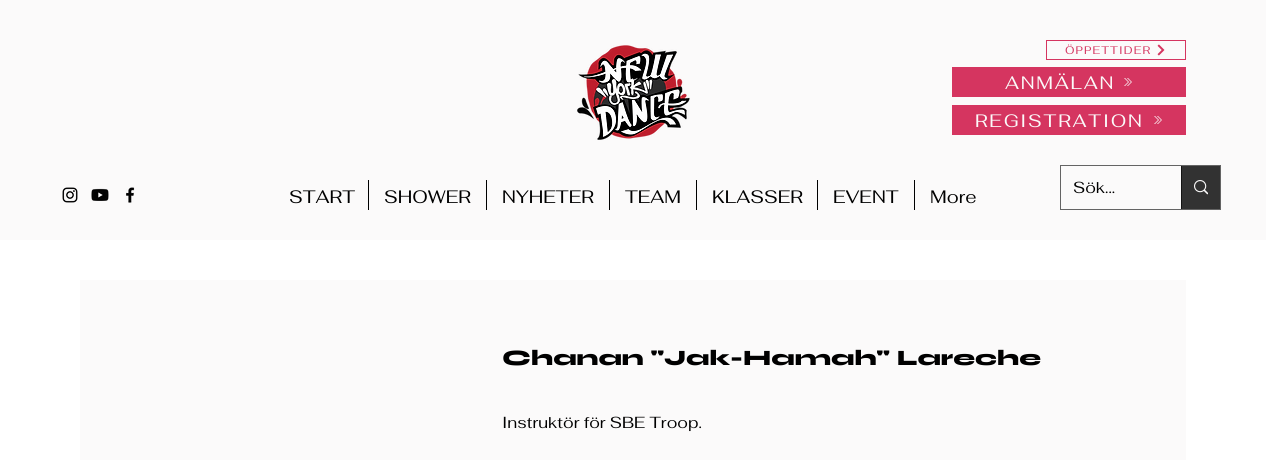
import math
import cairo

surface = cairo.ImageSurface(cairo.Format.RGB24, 1266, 460)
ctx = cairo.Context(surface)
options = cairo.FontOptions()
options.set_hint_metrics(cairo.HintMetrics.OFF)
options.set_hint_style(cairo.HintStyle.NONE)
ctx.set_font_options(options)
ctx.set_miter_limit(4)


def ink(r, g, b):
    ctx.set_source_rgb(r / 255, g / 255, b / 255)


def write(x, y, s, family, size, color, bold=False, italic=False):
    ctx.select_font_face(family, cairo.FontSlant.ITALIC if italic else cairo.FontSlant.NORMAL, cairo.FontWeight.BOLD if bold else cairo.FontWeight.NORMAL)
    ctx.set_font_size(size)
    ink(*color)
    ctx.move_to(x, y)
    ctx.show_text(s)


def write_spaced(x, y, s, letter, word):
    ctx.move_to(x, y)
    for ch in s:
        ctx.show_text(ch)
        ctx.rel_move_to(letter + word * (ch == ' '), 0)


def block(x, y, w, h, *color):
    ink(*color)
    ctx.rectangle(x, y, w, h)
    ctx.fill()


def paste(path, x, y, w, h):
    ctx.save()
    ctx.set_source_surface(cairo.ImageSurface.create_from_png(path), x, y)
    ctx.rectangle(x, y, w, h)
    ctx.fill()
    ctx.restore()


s1 = dict(family="Fahkwang", size=16, color=(0, 0, 0))
s2 = dict(family="Fahkwang", size=18, color=(0, 0, 0))
s3 = dict(family="Syne ExtraBold", size=22, color=(0, 0, 0))

ink(255, 255, 255)
ctx.paint()
block(0, 0, 1266, 240, 251, 250, 250)
paste("pic1.png", 577, 45, 113, 95)
ctx.rectangle(1046.5, 40.5, 139, 19)
ink(213, 53, 96)
ctx.set_line_width(1)
ctx.stroke()
ctx.select_font_face("Fahkwang")
ctx.set_font_size(11)
write_spaced(1065, 54, "ÖPPETTIDER", 1.1, 0)
paste("pic2.png", 1157, 44, 8, 12)
block(952, 67, 234, 30, 213, 53, 96)
ctx.set_font_size(18)
ink(251, 250, 250)
write_spaced(1005, 89, "ANMÄLAN", 1.75, 0)
paste("pic3.png", 1124, 78, 8, 8)
block(952, 105, 234, 30, 213, 53, 96)
ink(251, 250, 250)
write_spaced(975, 127, "REGISTRATION", 1.75, 0)
paste("pic3.png", 1154, 116, 8, 8)
paste("pic4.png", 62, 187, 16, 16)
paste("pic5.png", 91, 188, 18, 13)
paste("pic6.png", 126, 187, 9, 16)
ctx.rectangle(1060.5, 165.5, 160, 44)
ink(100, 100, 100)
ctx.stroke()
write(1073, 193, "Sök...", **s1)
block(1182, 166, 38, 43, 50, 50, 50)
block(1181, 166, 1, 43, 20, 20, 20)
paste("pic7.png", 1194, 180, 14, 15)
write(289, 203, "START", **s2)
block(368, 180, 1, 30, 0, 0, 0)
write(384, 203, "SHOWER", **s2)
block(486, 180, 1, 30, 0, 0, 0)
write(502, 203, "NYHETER", **s2)
block(609, 180, 1, 30, 0, 0, 0)
write(625, 203, "TEAM", **s2)
block(696, 180, 1, 30, 0, 0, 0)
write(712, 203, "KLASSER", **s2)
block(817, 180, 1, 30, 0, 0, 0)
write(833, 203, "EVENT", **s2)
block(914, 180, 1, 30, 0, 0, 0)
write(930, 203, "More", **s2)
block(80, 280, 1106, 180, 251, 250, 250)
write(502, 365, "Chanan \"Jak-Hamah\" Lareche", **s3)
write(502, 428, "Instruktör för SBE Troop.", **s1)
surface.write_to_png("screenshot.png")
